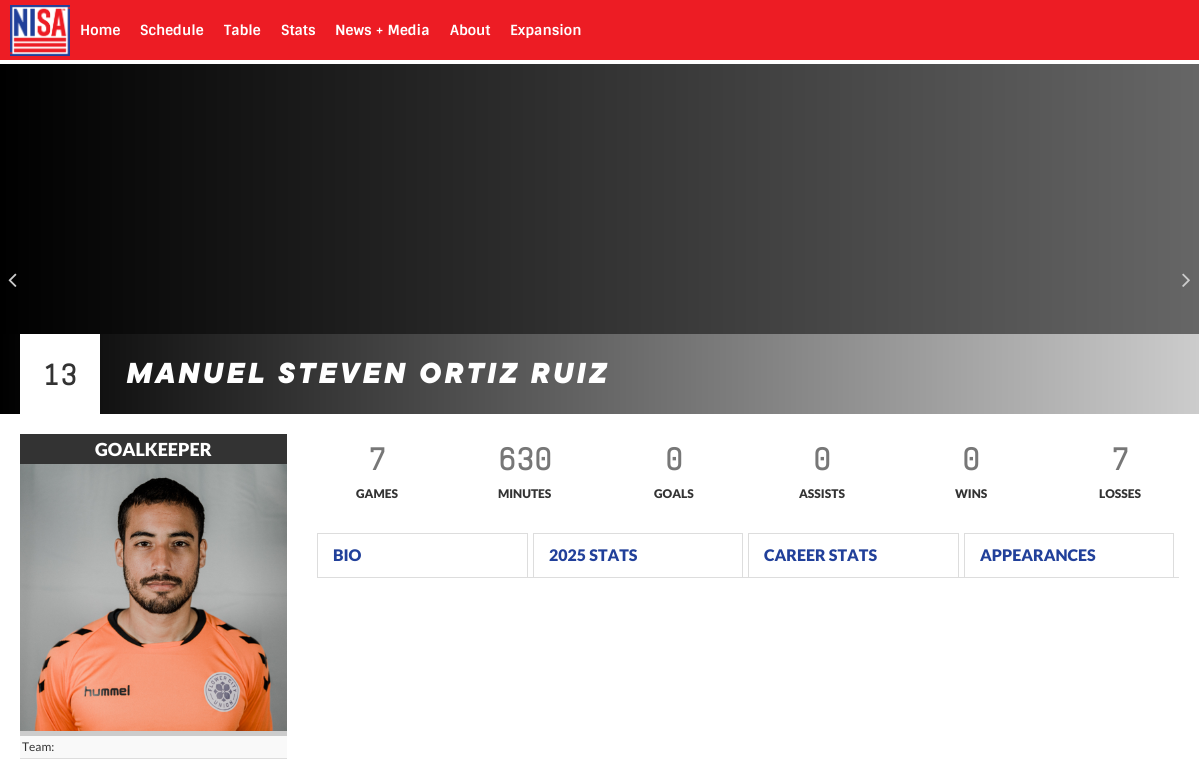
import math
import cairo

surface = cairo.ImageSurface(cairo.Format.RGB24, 1199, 767)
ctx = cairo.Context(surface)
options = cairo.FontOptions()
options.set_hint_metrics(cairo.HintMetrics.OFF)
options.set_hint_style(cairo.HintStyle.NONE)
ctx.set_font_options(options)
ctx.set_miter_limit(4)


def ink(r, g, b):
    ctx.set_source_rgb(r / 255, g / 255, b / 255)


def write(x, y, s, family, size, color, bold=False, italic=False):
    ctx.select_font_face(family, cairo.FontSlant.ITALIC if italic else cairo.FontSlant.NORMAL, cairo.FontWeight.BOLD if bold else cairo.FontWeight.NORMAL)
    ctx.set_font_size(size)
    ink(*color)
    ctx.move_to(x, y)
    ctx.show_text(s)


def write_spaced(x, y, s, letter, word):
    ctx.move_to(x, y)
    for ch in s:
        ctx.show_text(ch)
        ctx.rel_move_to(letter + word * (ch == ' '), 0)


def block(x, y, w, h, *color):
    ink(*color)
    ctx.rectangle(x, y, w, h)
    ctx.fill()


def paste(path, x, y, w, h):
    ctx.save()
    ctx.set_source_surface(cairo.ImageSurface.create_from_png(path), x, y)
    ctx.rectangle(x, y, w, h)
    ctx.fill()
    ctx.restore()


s1 = dict(family="Sintony", size=14, color=(255, 255, 255), bold=True)
s2 = dict(family="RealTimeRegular", size=32, color=(51, 51, 51), bold=True)
s3 = dict(family="Lato Black", size=18, color=(255, 255, 255))
s4 = dict(family="Lato", size=12, color=(51, 51, 51))
s5 = dict(family="RealTimeRegular", size=34, color=(119, 119, 119), bold=True)
s6 = dict(family="Lato Black", size=12, color=(51, 51, 51))
s7 = dict(family="Lato Black", size=16, color=(33, 64, 154))

ink(255, 255, 255)
ctx.paint()
block(0, 0, 1199, 60, 237, 28, 36)
paste("pic1.png", 10, 5, 60, 51)
write(80, 35, "Home", **s1)
write(140, 35, "Schedule", **s1)
write(224, 35, "Table", **s1)
write(281, 35, "Stats", **s1)
write(335, 35, "News + Media", **s1)
write(450, 35, "About", **s1)
write(510, 35, "Expansion", **s1)
gradient = cairo.LinearGradient(0, 239, 1199, 239)
gradient.add_color_stop_rgba(0, 0, 0, 0, 1)
gradient.add_color_stop_rgba(1, 0.4, 0.4, 0.4, 1)
ctx.set_source(gradient)
ctx.rectangle(0, 64, 1199, 270)
ctx.fill()
paste("pic2.png", 8, 273, 9, 14)
paste("pic3.png", 1182, 273, 8, 14)
gradient = cairo.LinearGradient(0, 374, 1199, 374)
gradient.add_color_stop_rgba(0, 0, 0, 0, 1)
gradient.add_color_stop_rgba(1, 0.8, 0.8, 0.8, 1)
ctx.set_source(gradient)
ctx.rectangle(0, 334, 1199, 80)
ctx.fill()
block(20, 334, 80, 80, 255, 255, 255)
write(43, 385, "13", **s2)
ctx.select_font_face("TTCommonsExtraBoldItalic")
ink(255, 255, 255)
write_spaced(125, 383, "MANUEL STEVEN ORTIZ RUIZ", 3, 0)
block(20, 434, 267, 30, 51, 51, 51)
write(95, 456, "GOALKEEPER", **s3)
paste("pic4.png", 20, 464, 267, 267)
block(20, 731, 267, 5, 204, 204, 204)
block(20, 736, 267, 22, 249, 249, 249)
block(20, 758, 267, 1, 221, 221, 221)
write(22, 751, "Team:", **s4)
write(368, 470, "7", **s5)
write(356, 498, "GAMES", **s6)
write(498, 470, "630", **s5)
write(498, 498, "MINUTES", **s6)
write(665, 470, "0", **s5)
write(654, 498, "GOALS", **s6)
write(813, 470, "0", **s5)
write(799, 498, "ASSISTS", **s6)
write(962, 470, "0", **s5)
write(955, 498, "WINS", **s6)
write(1111, 470, "7", **s5)
write(1099, 498, "LOSSES", **s6)
block(528, 577, 651, 1, 221, 221, 221)
ctx.rectangle(317.5, 533.5, 210, 44)
ctx.set_line_width(1)
ctx.stroke()
write(333, 561, "BIO", **s7)
ctx.rectangle(533.5, 533.5, 209, 44)
ink(221, 221, 221)
ctx.stroke()
write(549, 561, "2025 STATS", **s7)
ctx.rectangle(748.5, 533.5, 210, 44)
ink(221, 221, 221)
ctx.stroke()
write(764, 561, "CAREER STATS", **s7)
ctx.rectangle(964.5, 533.5, 209, 44)
ink(221, 221, 221)
ctx.stroke()
write(980, 561, "APPEARANCES", **s7)
surface.write_to_png("screenshot.png")
